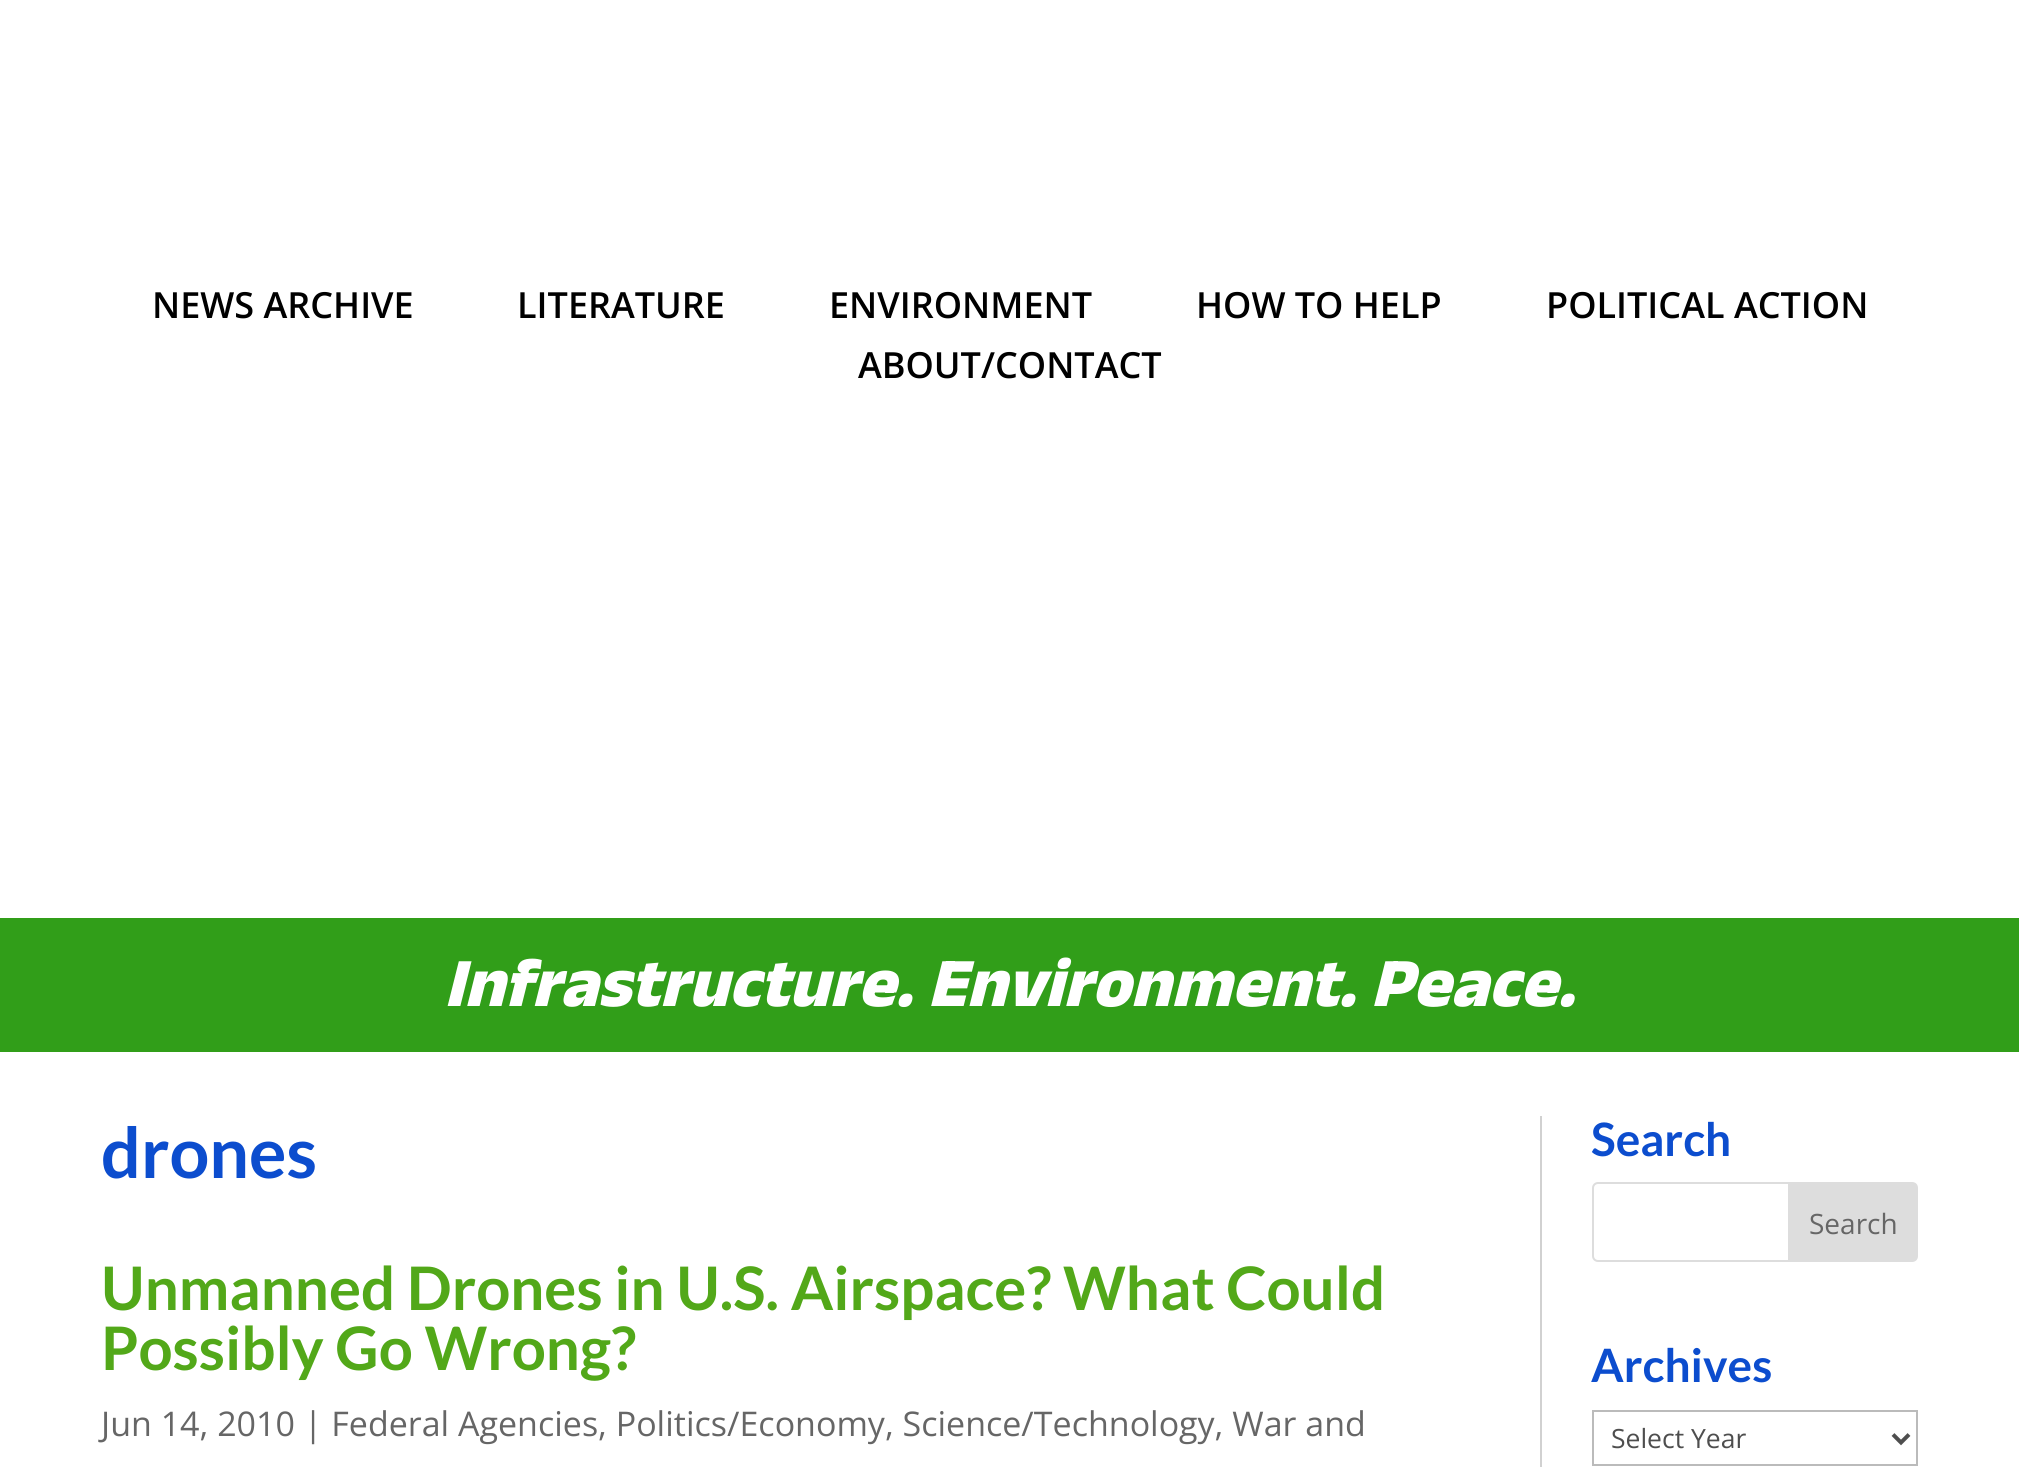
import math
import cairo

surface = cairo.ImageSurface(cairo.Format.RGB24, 2019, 1467)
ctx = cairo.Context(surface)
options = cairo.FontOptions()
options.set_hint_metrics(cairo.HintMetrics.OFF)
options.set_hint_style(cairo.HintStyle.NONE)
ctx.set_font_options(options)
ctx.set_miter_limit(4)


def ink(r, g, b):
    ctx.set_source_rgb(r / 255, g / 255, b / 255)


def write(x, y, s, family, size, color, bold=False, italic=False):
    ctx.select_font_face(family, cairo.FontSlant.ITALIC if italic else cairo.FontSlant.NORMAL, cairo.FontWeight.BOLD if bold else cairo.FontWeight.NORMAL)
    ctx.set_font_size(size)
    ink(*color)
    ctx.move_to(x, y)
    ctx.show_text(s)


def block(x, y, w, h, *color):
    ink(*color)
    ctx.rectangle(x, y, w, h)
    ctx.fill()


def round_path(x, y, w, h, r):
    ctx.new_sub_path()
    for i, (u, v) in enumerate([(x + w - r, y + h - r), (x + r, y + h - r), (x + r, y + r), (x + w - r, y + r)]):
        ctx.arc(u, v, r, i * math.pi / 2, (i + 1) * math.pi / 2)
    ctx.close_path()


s1 = dict(family="Open Sans SemiBold", size=36, color=(0, 0, 0))
s2 = dict(family="Anek Devanagari ExtraBold", size=70, color=(255, 255, 255), italic=True)
s3 = dict(family="Lato", size=70, color=(12, 77, 206), bold=True)
s4 = dict(family="Lato", size=60, color=(82, 168, 25), bold=True)
s5 = dict(family="Open Sans", size=34, color=(102, 102, 102))
s6 = dict(family="Lato", size=46, color=(12, 77, 206), bold=True)
s7 = dict(family="Open Sans", size=28, color=(102, 102, 102))
s8 = dict(family="Open Sans", size=26.5, color=(78, 78, 78))

ink(255, 255, 255)
ctx.paint()
write(152, 318, "NEWS ARCHIVE", **s1)
write(517, 318, "LITERATURE", **s1)
write(829, 318, "ENVIRONMENT", **s1)
write(1196, 318, "HOW TO HELP", **s1)
write(1546, 318, "POLITICAL ACTION", **s1)
write(858, 378, "ABOUT/CONTACT", **s1)
block(0, 918, 2019, 134, 49, 158, 25)
write(444, 1006, "Infrastructure. Environment. Peace.", **s2)
write(101, 1178, "drones", **s3)
write(101, 1310, "Unmanned Drones in U.S. Airspace? What Could", **s4)
write(101, 1370, "Possibly Go Wrong?", **s4)
write(101, 1436, "Jun 14, 2010 | Federal Agencies, Politics/Economy, Science/Technology, War and", **s5)
block(1540, 1116, 2, 351, 209, 209, 209)
write(1591, 1156, "Search", **s6)
round_path(1593, 1183, 244, 78, 5)
ink(221, 221, 221)
ctx.stroke()
ctx.new_path()
ctx.move_to(1789, 1183)
ctx.line_to(1912, 1183)
ctx.curve_to(1915, 1183, 1917, 1185, 1917, 1188)
ctx.line_to(1917, 1256)
ctx.curve_to(1917, 1259, 1915, 1261, 1912, 1261)
ctx.line_to(1789, 1261)
ctx.close_path()
ctx.fill_preserve()
ctx.stroke()
write(1809, 1234, "Search", **s7)
write(1591, 1382, "Archives", **s6)
ctx.rectangle(1593, 1411, 324, 54)
ink(187, 187, 187)
ctx.stroke()
ctx.new_path()
ctx.move_to(1893, 1434.5)
ctx.line_to(1901, 1442.5)
ctx.line_to(1909, 1434.5)
ink(78, 78, 78)
ctx.set_line_width(4)
ctx.stroke()
write(1611, 1448, "Select Year", **s8)
surface.write_to_png("screenshot.png")
